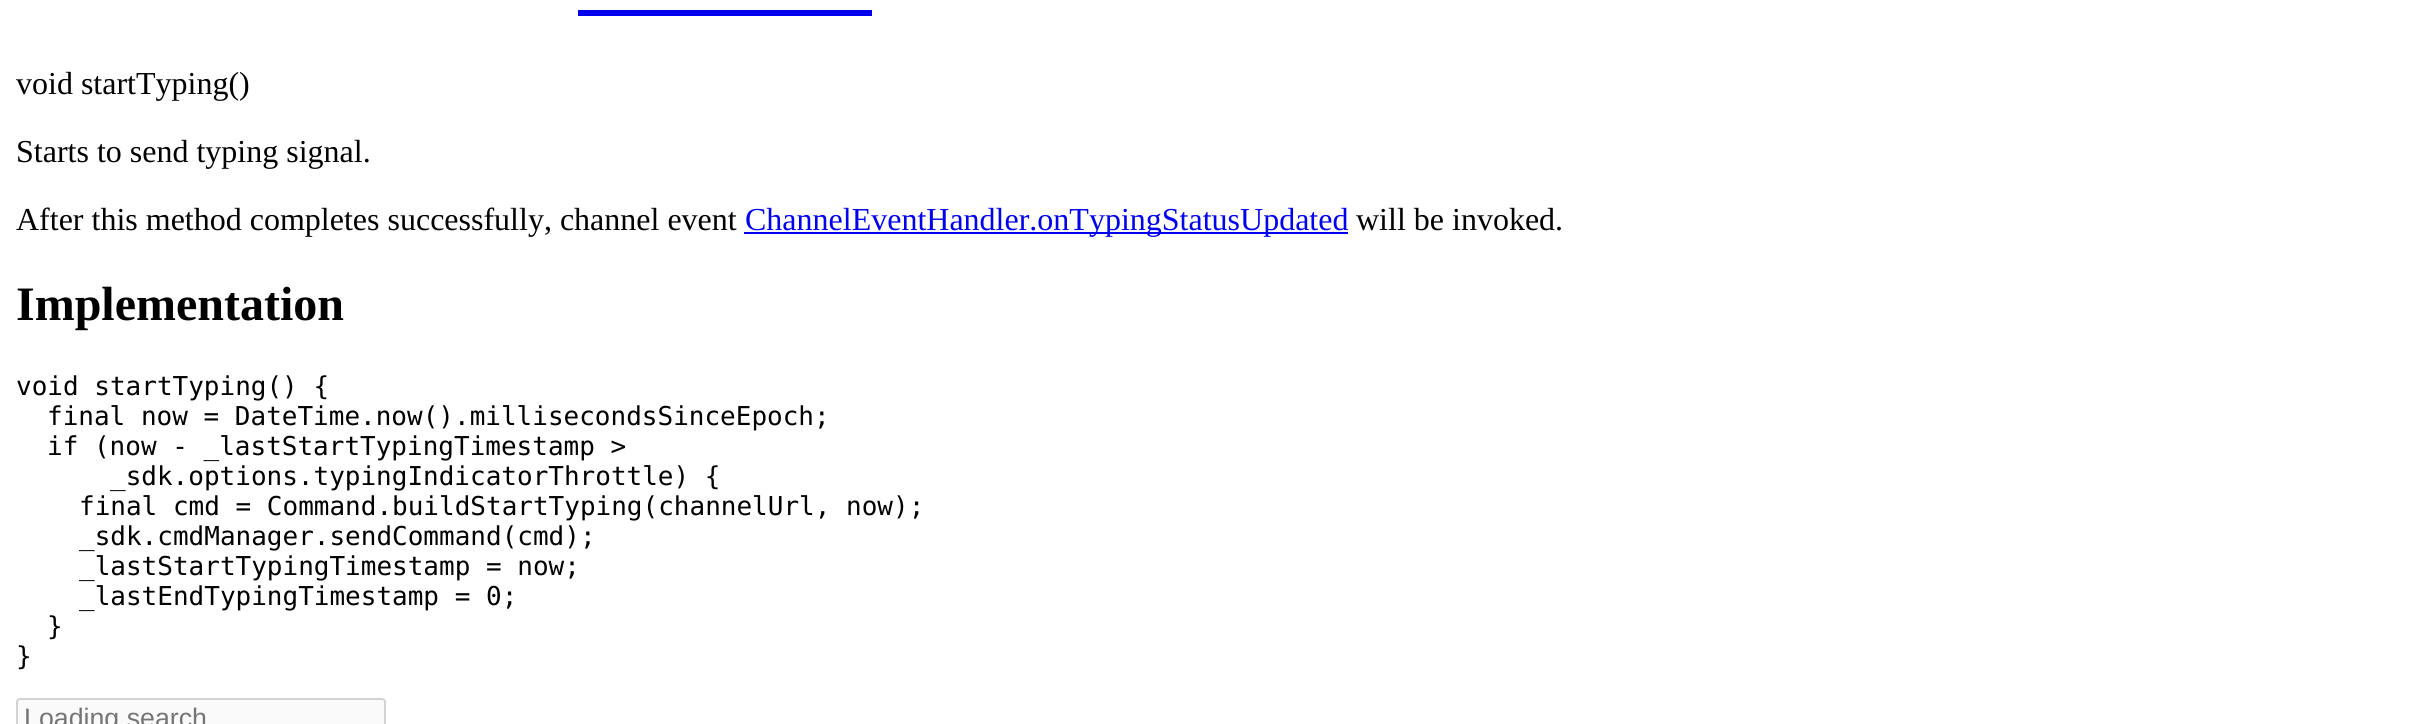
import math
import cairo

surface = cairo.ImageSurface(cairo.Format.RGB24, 2424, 724)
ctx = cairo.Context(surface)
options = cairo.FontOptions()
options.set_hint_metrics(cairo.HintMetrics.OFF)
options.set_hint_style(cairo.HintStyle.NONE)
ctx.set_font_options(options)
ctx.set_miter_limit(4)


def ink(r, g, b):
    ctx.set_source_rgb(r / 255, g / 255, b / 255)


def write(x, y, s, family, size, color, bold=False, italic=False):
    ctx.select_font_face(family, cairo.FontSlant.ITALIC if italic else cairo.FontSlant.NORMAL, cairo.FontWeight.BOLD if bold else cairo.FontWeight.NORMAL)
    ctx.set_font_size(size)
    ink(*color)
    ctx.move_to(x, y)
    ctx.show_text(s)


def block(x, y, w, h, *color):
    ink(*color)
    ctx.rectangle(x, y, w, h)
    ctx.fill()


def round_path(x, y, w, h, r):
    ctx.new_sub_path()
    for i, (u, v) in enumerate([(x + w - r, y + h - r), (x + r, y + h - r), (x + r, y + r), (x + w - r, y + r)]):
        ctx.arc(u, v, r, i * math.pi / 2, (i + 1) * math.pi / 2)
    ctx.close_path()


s1 = dict(family="Liberation Serif", size=32, color=(0, 0, 0))
s2 = dict(family="Liberation Serif", size=32, color=(0, 0, 238))
s3 = dict(family="Liberation Serif", size=48, color=(0, 0, 0), bold=True)
s4 = dict(family="DejaVu Sans Mono", size=26, color=(0, 0, 0))
s5 = dict(family="Liberation Sans", size=26.75, color=(117, 117, 117))

ink(255, 255, 255)
ctx.paint()
block(578, 10, 294, 6, 0, 0, 238)
write(16, 94, "void startTyping()", **s1)
write(16, 162, "Starts to send typing signal.", **s1)
write(16, 230, "After this method completes successfully, channel event", **s1)
block(744, 232, 604, 2, 0, 0, 238)
write(745, 230, "ChannelEventHandler.onTypingStatusUpdated", **s2)
write(1356, 230, "will be invoked.", **s1)
write(16, 320, "Implementation", **s3)
write(16, 395, "void startTyping() {", **s4)
write(47, 425, "final now = DateTime.now().millisecondsSinceEpoch;", **s4)
write(47, 455, "if (now - _lastStartTypingTimestamp >", **s4)
write(110, 485, "_sdk.options.typingIndicatorThrottle) {", **s4)
write(79, 515, "final cmd = Command.buildStartTyping(channelUrl, now);", **s4)
write(79, 545, "_sdk.cmdManager.sendCommand(cmd);", **s4)
write(79, 575, "_lastStartTypingTimestamp = now;", **s4)
write(79, 605, "_lastEndTypingTimestamp = 0;", **s4)
write(47, 635, "}", **s4)
write(16, 665, "}", **s4)
ink(250, 250, 250)
round_path(17, 699, 368, 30, 3)
ctx.fill_preserve()
ink(210, 210, 210)
ctx.stroke()
write(24, 727, "Loading search", **s5)
surface.write_to_png("screenshot.png")
